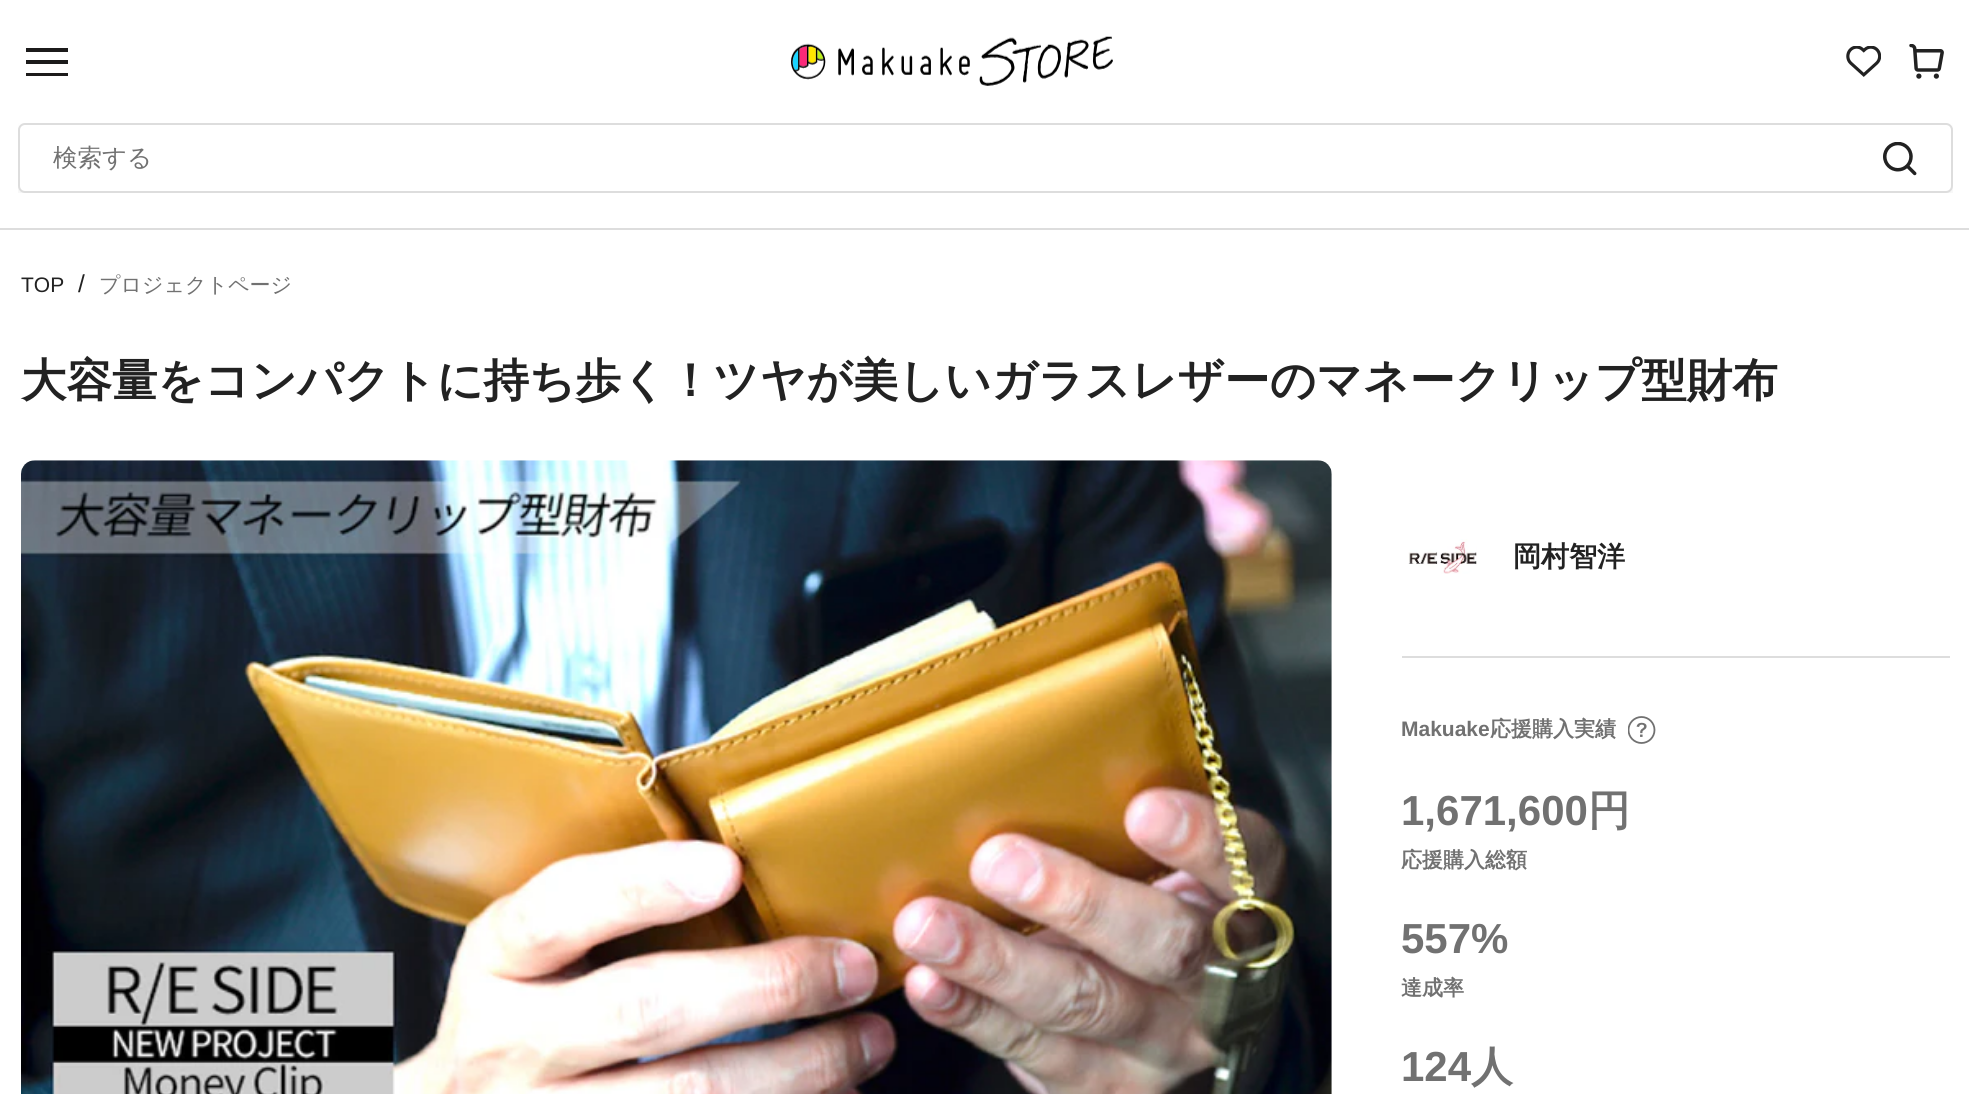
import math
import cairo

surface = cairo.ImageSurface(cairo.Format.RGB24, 1969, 1094)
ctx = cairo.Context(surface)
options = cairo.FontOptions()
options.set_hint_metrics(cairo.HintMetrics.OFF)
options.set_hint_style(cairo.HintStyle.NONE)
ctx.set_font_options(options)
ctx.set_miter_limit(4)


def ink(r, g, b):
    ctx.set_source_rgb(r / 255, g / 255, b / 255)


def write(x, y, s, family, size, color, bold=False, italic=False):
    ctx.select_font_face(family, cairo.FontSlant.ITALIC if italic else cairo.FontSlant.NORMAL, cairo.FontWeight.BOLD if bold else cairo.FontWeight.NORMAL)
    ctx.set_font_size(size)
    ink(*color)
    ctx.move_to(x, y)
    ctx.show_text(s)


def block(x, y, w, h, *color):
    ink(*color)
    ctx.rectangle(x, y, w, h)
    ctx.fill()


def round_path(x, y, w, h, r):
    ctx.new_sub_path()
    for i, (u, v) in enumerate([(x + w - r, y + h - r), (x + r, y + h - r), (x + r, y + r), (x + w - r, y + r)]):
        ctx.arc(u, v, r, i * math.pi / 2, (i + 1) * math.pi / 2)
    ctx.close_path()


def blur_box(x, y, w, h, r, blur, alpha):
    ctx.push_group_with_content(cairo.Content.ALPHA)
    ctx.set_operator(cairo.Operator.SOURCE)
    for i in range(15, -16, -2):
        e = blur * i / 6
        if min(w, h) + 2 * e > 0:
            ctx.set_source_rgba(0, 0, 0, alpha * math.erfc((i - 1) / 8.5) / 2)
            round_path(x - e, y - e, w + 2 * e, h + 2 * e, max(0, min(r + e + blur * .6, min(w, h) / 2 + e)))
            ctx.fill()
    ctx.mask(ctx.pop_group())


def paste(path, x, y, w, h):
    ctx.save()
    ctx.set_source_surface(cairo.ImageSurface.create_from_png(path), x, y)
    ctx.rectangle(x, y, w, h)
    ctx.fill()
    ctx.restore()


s1 = dict(family="WenQuanYi Zen Hei Medium", size=24.5, color=(113, 113, 113))
s2 = dict(family="Liberation Sans", size=21, color=(34, 34, 34))
s3 = dict(family="Liberation Sans", size=24.5, color=(34, 34, 34))
s4 = dict(family="WenQuanYi Zen Hei Medium", size=21, color=(113, 113, 113))
s5 = dict(family="WenQuanYi Zen Hei", size=45.5, color=(34, 34, 34), bold=True)
s6 = dict(family="WenQuanYi Zen Hei", size=28, color=(34, 34, 34), bold=True)
s7 = dict(family="Liberation Sans", size=21, color=(113, 113, 113), bold=True)
s8 = dict(family="WenQuanYi Zen Hei", size=21, color=(113, 113, 113), bold=True)
s9 = dict(family="Liberation Sans", size=42, color=(113, 113, 113), bold=True)
s10 = dict(family="WenQuanYi Zen Hei", size=42, color=(113, 113, 113), bold=True)

ink(255, 255, 255)
ctx.paint()
block(0, 228, 1969, 2, 221, 221, 221)
ink(28, 27, 27)
ctx.new_path()
ctx.move_to(26, 76)
ctx.line_to(26, 73)
ctx.line_to(68, 73)
ctx.line_to(68, 76)
ctx.close_path()
ctx.move_to(26, 60)
ctx.line_to(68, 60)
ctx.line_to(68, 64)
ctx.line_to(26, 64)
ctx.close_path()
ctx.move_to(26, 48)
ctx.line_to(68, 48)
ctx.line_to(68, 52)
ctx.line_to(26, 52)
ctx.close_path()
ctx.fill()
paste("pic1.png", 791, 36, 322, 50)
paste("pic2.png", 1846, 46, 35, 31)
paste("pic3.png", 1909, 44, 35, 35)
ctx.save()
ctx.rectangle(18, 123, 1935, 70)
ctx.clip()
ink(0, 0, 0)
blur_box(18, 130, 1935, 70, 7, 7, 0.06)
ctx.restore()
ink(255, 255, 255)
round_path(19, 124, 1933, 68, 6)
ctx.fill_preserve()
ink(221, 221, 221)
ctx.stroke()
write(53, 166, "検索する", **s1)
paste("pic4.png", 1883, 142, 34, 34)
write(21, 292, "TOP", **s2)
write(78, 292, "/", **s3)
write(99, 292, "プロジェクトページ", **s4)
write(21, 396, "大容量をコンパクトに持ち歩く！ツヤが美しいガラスレザーのマネークリップ型財布", **s5)
paste("pic5.png", 21, 460, 1311, 634)
paste("pic6.png", 1408, 539, 69, 35)
write(1513, 566, "岡村智洋", **s6)
block(1402, 656, 548, 2, 221, 221, 221)
write(1401, 736, "Makuake", **s7)
write(1490, 736, "応援購入実績", **s8)
paste("pic7.png", 1628, 716, 28, 28)
write(1401, 825, "1,671,600", **s9)
write(1588, 825, "円", **s10)
write(1401, 867, "応援購入総額", **s8)
write(1401, 953, "557%", **s9)
write(1401, 995, "達成率", **s8)
write(1401, 1081, "124", **s9)
write(1471, 1081, "人", **s10)
surface.write_to_png("screenshot.png")
